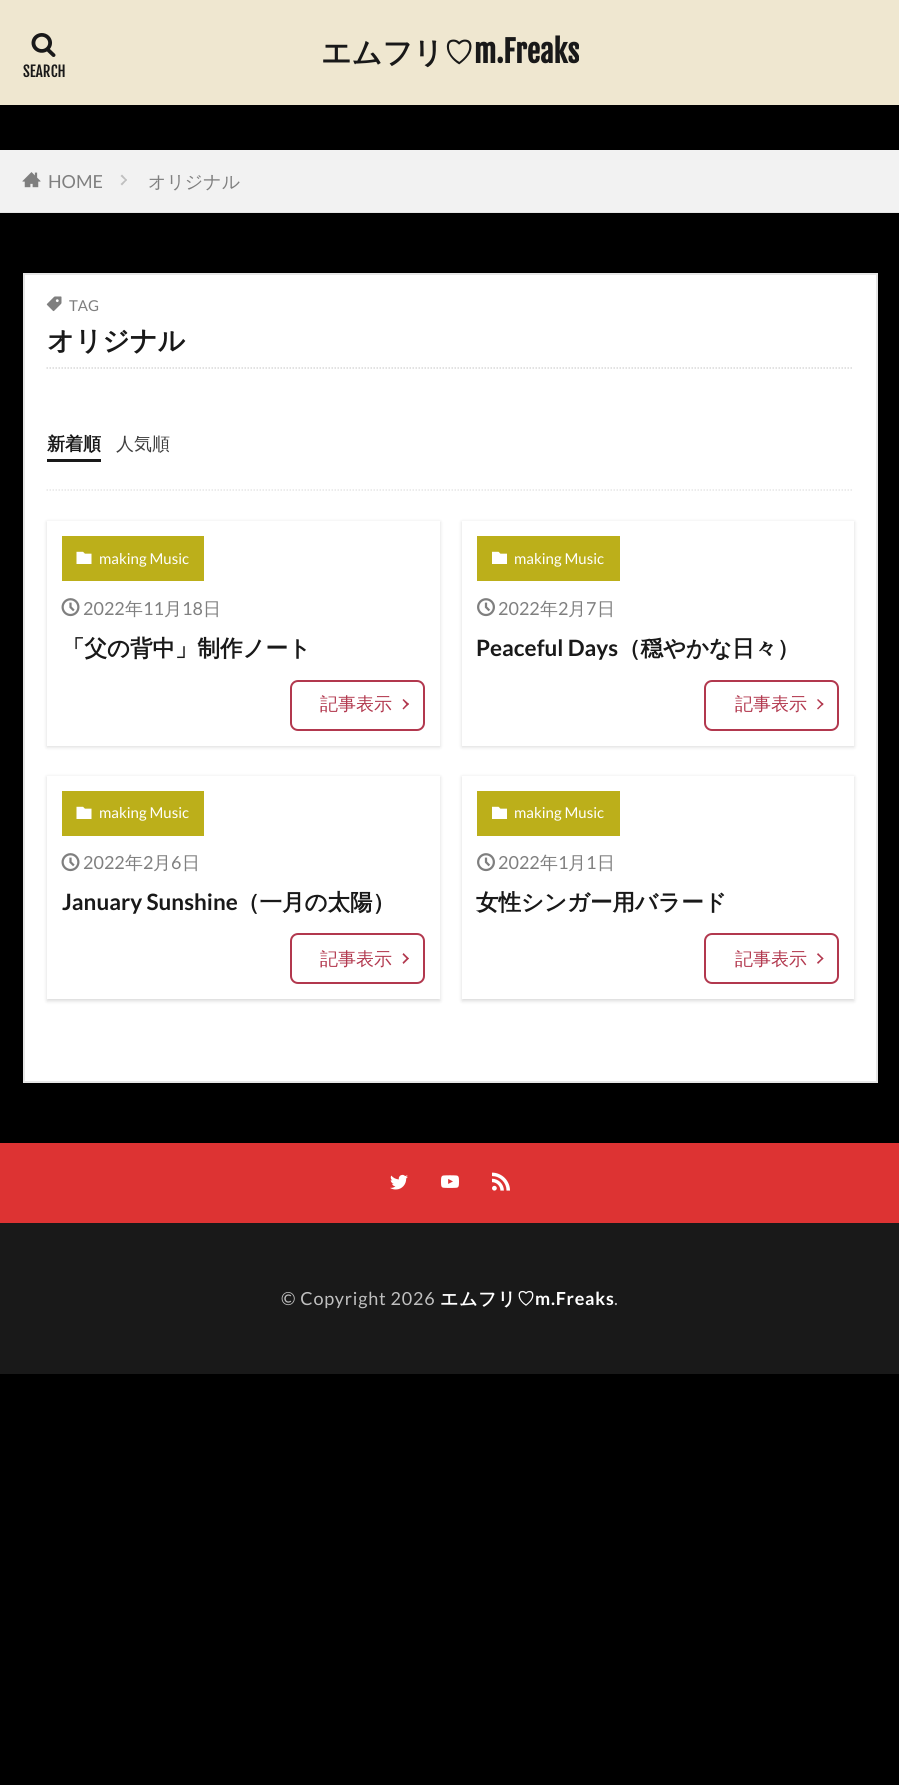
import math
import cairo

surface = cairo.ImageSurface(cairo.Format.RGB24, 899, 1785)
ctx = cairo.Context(surface)
options = cairo.FontOptions()
options.set_hint_metrics(cairo.HintMetrics.OFF)
options.set_hint_style(cairo.HintStyle.NONE)
ctx.set_font_options(options)
ctx.set_miter_limit(4)


def ink(r, g, b):
    ctx.set_source_rgb(r / 255, g / 255, b / 255)


def write(x, y, s, family, size, color, bold=False, italic=False):
    ctx.select_font_face(family, cairo.FontSlant.ITALIC if italic else cairo.FontSlant.NORMAL, cairo.FontWeight.BOLD if bold else cairo.FontWeight.NORMAL)
    ctx.set_font_size(size)
    ink(*color)
    ctx.move_to(x, y)
    ctx.show_text(s)


def write_spaced(x, y, s, letter, word):
    ctx.move_to(x, y)
    for ch in s:
        ctx.show_text(ch)
        ctx.rel_move_to(letter + word * (ch == ' '), 0)


def block(x, y, w, h, *color):
    ink(*color)
    ctx.rectangle(x, y, w, h)
    ctx.fill()


def round_path(x, y, w, h, r):
    ctx.new_sub_path()
    for i, (u, v) in enumerate([(x + w - r, y + h - r), (x + r, y + h - r), (x + r, y + r), (x + w - r, y + r)]):
        ctx.arc(u, v, r, i * math.pi / 2, (i + 1) * math.pi / 2)
    ctx.close_path()


def blur_box(x, y, w, h, r, blur, alpha):
    ctx.push_group_with_content(cairo.Content.ALPHA)
    ctx.set_operator(cairo.Operator.SOURCE)
    for i in range(15, -16, -2):
        e = blur * i / 6
        if min(w, h) + 2 * e > 0:
            ctx.set_source_rgba(0, 0, 0, alpha * math.erfc((i - 1) / 8.5) / 2)
            round_path(x - e, y - e, w + 2 * e, h + 2 * e, max(0, min(r + e + blur * .6, min(w, h) / 2 + e)))
            ctx.fill()
    ctx.mask(ctx.pop_group())


def paste(path, x, y, w, h):
    ctx.save()
    ctx.set_source_surface(cairo.ImageSurface.create_from_png(path), x, y)
    ctx.rectangle(x, y, w, h)
    ctx.fill()
    ctx.restore()


s1 = dict(family="WenQuanYi Zen Hei", size=30, color=(25, 25, 25), bold=True)
s2 = dict(family="Fjalla One", size=30, color=(25, 25, 25), bold=True)
s3 = dict(family="Fjalla One", size=15, color=(25, 25, 25))
s4 = dict(family="Lato", size=18, color=(127, 127, 127))
s5 = dict(family="WenQuanYi Zen Hei Medium", size=18, color=(127, 127, 127))
s6 = dict(family="Lato", size=15, color=(127, 127, 127))
s7 = dict(family="WenQuanYi Zen Hei", size=27, color=(25, 25, 25), bold=True)
s8 = dict(family="WenQuanYi Zen Hei", size=18, color=(25, 25, 25), bold=True)
s9 = dict(family="WenQuanYi Zen Hei Medium", size=18, color=(63, 63, 63))
s10 = dict(family="Lato", size=15, color=(255, 255, 255))
s11 = dict(family="WenQuanYi Zen Hei", size=22.5, color=(25, 25, 25), bold=True)
s12 = dict(family="WenQuanYi Zen Hei Medium", size=18, color=(178, 56, 78))
s13 = dict(family="Lato", size=22.5, color=(25, 25, 25), bold=True)

ink(0, 0, 0)
ctx.paint()
block(0, 0, 899, 105, 239, 231, 208)
write(321, 63, "エムフリ♡", **s1)
write(474, 63, "m.Freaks", **s2)
paste("pic1.png", 31, 33, 25, 24)
write(23, 77, "SEARCH", **s3)
block(0, 150, 899, 62, 242, 242, 242)
block(0, 212, 899, 1, 230, 230, 230)
paste("pic2.png", 22, 172, 19, 16)
write(48, 188, "HOME", **s4)
ink(191, 191, 191)
ctx.new_path()
ctx.move_to(122, 174.5)
ctx.line_to(127, 180)
ctx.line_to(126, 181)
ctx.line_to(120.5, 176)
ctx.close_path()
ctx.fill()
ctx.new_path()
ctx.move_to(126, 179)
ctx.line_to(127, 180)
ctx.line_to(122, 185.5)
ctx.line_to(120.5, 184)
ctx.close_path()
ctx.fill()
write(148, 188, "オリジナル", **s5)
ink(255, 255, 255)
ctx.rectangle(24, 274, 853, 808)
ctx.fill_preserve()
ink(230, 230, 230)
ctx.stroke()
paste("pic3.png", 46, 296, 16, 16)
write(69, 311, "TAG", **s6)
ctx.new_path()
ctx.move_to(46.5, 368)
ctx.line_to(853.5, 368)
ink(216, 216, 216)
ctx.set_line_width(1.5)
ctx.set_dash([1.5, 1.5])
ctx.stroke()
write(47, 350, "オリジナル", **s7)
ctx.new_path()
ctx.move_to(46.5, 490)
ctx.line_to(853.5, 490)
ink(230, 230, 230)
ctx.stroke()
write(47, 450, "新着順", **s8)
block(47, 459, 54, 3, 25, 25, 25)
write(116, 450, "人気順", **s9)
ink(0, 0, 0)
blur_box(47, 522, 393, 225, 0, 2, 0.15)
block(47, 521, 393, 225, 255, 255, 255)
block(62, 536, 142, 45, 188, 175, 26)
paste("pic4.png", 76, 551, 16, 13)
write(99, 564, "making Music", **s10)
paste("pic5.png", 61, 598, 19, 19)
write(83, 615, "2022", **s4)
write(125, 615, "年", **s5)
write(143, 615, "11", **s4)
write(164, 615, "月", **s5)
write(182, 615, "18", **s4)
write(203, 615, "日", **s5)
write(62, 656, "「父の背中」制作ノート", **s11)
round_path(291, 681, 133, 49, 7)
ink(178, 56, 78)
ctx.set_line_width(2)
ctx.set_dash([])
ctx.stroke()
write(320, 710, "記事表示", **s12)
ctx.new_path()
ctx.move_to(403.5, 699)
ctx.line_to(409, 704)
ctx.line_to(407.5, 705.5)
ctx.line_to(402.5, 700)
ctx.close_path()
ctx.fill()
ctx.new_path()
ctx.move_to(407.5, 703)
ctx.line_to(409, 704)
ctx.line_to(403.5, 709.5)
ctx.line_to(402.5, 708.5)
ctx.close_path()
ctx.fill()
ink(0, 0, 0)
blur_box(462, 522, 392, 225, 0, 2, 0.15)
block(462, 521, 392, 225, 255, 255, 255)
block(477, 536, 143, 45, 188, 175, 26)
paste("pic6.png", 492, 551, 15, 13)
write(514, 564, "making Music", **s10)
paste("pic7.png", 477, 598, 18, 19)
write(498, 615, "2022", **s4)
write(540, 615, "年", **s5)
write(558, 615, "2", **s4)
write(568, 615, "月", **s5)
write(586, 615, "7", **s4)
write(597, 615, "日", **s5)
write(476, 656, "Peaceful Days", **s13)
write(618, 656, "（穏やかな日々）", **s11)
round_path(705, 681, 133, 49, 7)
ink(178, 56, 78)
ctx.stroke()
write(735, 710, "記事表示", **s12)
ctx.new_path()
ctx.move_to(818, 699)
ctx.line_to(823.5, 704)
ctx.line_to(822.5, 705.5)
ctx.line_to(817, 700)
ctx.close_path()
ctx.fill()
ctx.new_path()
ctx.move_to(822.5, 703)
ctx.line_to(823.5, 704)
ctx.line_to(818, 709.5)
ctx.line_to(817, 708.5)
ctx.close_path()
ctx.fill()
ink(0, 0, 0)
blur_box(47, 777, 393, 224, 0, 2, 0.15)
block(47, 776, 393, 223, 255, 255, 255)
block(62, 791, 142, 45, 188, 175, 26)
paste("pic4.png", 76, 806, 16, 13)
write(99, 818, "making Music", **s10)
paste("pic5.png", 61, 853, 19, 19)
write(83, 869, "2022", **s4)
write(125, 869, "年", **s5)
write(143, 869, "2", **s4)
write(153, 869, "月", **s5)
write(171, 869, "6", **s4)
write(182, 869, "日", **s5)
write(62, 910, "January Sunshine", **s13)
write(237, 910, "（一月の太陽）", **s11)
round_path(291, 934, 133, 49, 7)
ink(178, 56, 78)
ctx.stroke()
write(320, 965, "記事表示", **s12)
ctx.new_path()
ctx.move_to(403.5, 953)
ctx.line_to(409, 958.5)
ctx.line_to(407.5, 959.5)
ctx.line_to(402.5, 954.5)
ctx.close_path()
ctx.fill()
ctx.new_path()
ctx.move_to(407.5, 957.5)
ctx.line_to(409, 958.5)
ctx.line_to(403.5, 964)
ctx.line_to(402.5, 962.5)
ctx.close_path()
ctx.fill()
ink(0, 0, 0)
blur_box(462, 777, 392, 224, 0, 2, 0.15)
block(462, 776, 392, 223, 255, 255, 255)
block(477, 791, 143, 45, 188, 175, 26)
paste("pic6.png", 492, 806, 15, 13)
write(514, 818, "making Music", **s10)
paste("pic7.png", 477, 853, 18, 19)
write(498, 869, "2022", **s4)
write(540, 869, "年", **s5)
write(558, 869, "1", **s4)
write(568, 869, "月", **s5)
write(586, 869, "1", **s4)
write(597, 869, "日", **s5)
write(476, 910, "女性シンガー用バラード", **s11)
round_path(705, 934, 133, 49, 7)
ink(178, 56, 78)
ctx.stroke()
write(735, 965, "記事表示", **s12)
ctx.new_path()
ctx.move_to(818, 953)
ctx.line_to(823.5, 958.5)
ctx.line_to(822.5, 959.5)
ctx.line_to(817, 954.5)
ctx.close_path()
ctx.fill()
ctx.new_path()
ctx.move_to(822.5, 957.5)
ctx.line_to(823.5, 958.5)
ctx.line_to(818, 964)
ctx.line_to(817, 962.5)
ctx.close_path()
ctx.fill()
block(0, 1143, 899, 80, 221, 51, 51)
paste("pic8.png", 390, 1174, 18, 16)
paste("pic9.png", 441, 1175, 18, 13)
paste("pic10.png", 492, 1172, 18, 19)
block(0, 1223, 899, 151, 25, 25, 25)
ctx.select_font_face("Lato")
ink(191, 191, 191)
write_spaced(281, 1305, "© Copyright 2026", 0.75, 0)
ctx.select_font_face("WenQuanYi Zen Hei", cairo.FontSlant.NORMAL, cairo.FontWeight.BOLD)
ink(255, 255, 255)
write_spaced(440, 1305, "エムフリ♡", 0.75, 0)
ctx.select_font_face("Lato", cairo.FontSlant.NORMAL, cairo.FontWeight.BOLD)
write_spaced(535, 1305, "m.Freaks", 0.75, 0)
ctx.select_font_face("Lato")
ink(191, 191, 191)
write_spaced(614, 1305, ".", 0.75, 0)
surface.write_to_png("screenshot.png")
